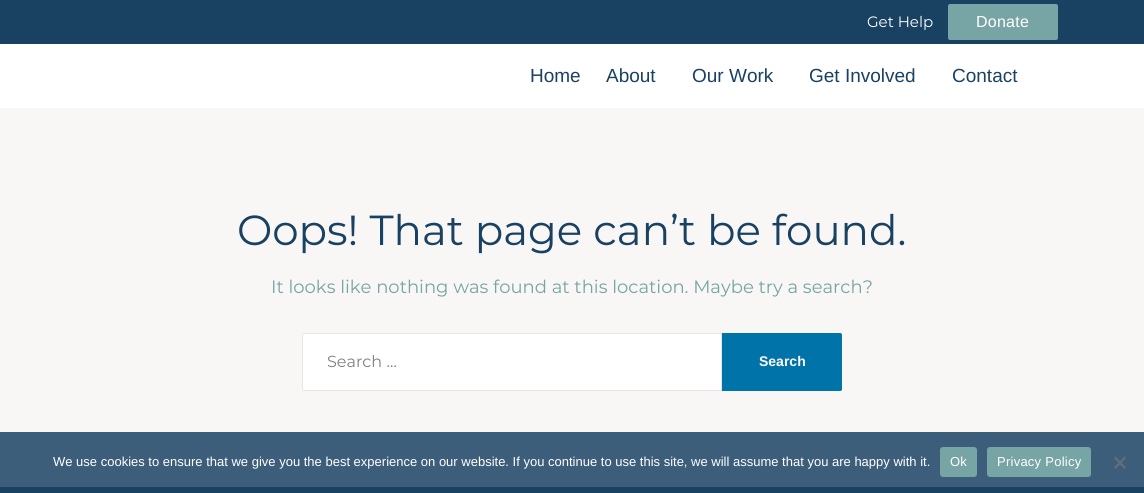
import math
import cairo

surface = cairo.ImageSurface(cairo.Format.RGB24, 1144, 493)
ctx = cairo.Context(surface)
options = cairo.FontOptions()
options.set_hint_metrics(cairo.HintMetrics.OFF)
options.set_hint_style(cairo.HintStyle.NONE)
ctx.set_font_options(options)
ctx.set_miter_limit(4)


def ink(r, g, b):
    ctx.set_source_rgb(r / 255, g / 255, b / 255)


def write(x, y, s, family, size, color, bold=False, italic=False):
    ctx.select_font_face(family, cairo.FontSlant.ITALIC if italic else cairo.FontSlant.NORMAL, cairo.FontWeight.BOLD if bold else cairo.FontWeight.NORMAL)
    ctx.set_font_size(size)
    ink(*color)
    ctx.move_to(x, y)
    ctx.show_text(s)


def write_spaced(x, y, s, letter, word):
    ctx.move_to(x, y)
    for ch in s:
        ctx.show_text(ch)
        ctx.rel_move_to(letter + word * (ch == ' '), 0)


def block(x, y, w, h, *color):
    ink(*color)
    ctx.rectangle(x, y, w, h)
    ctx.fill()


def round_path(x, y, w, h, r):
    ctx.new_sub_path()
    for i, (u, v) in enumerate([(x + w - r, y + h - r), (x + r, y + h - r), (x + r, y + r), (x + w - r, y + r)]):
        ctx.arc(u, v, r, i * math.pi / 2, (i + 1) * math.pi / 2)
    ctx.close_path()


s1 = dict(family="Montserrat", size=15, color=(255, 255, 255))
s2 = dict(family="Liberation Sans", size=19, color=(25, 65, 98))
s3 = dict(family="Montserrat", size=42, color=(25, 65, 98))
s4 = dict(family="Montserrat", size=18, color=(119, 164, 165))
s5 = dict(family="Montserrat", size=16, color=(128, 128, 128))
s6 = dict(family="Liberation Sans", size=14, color=(255, 255, 255), bold=True)
s7 = dict(family="Liberation Sans", size=13, color=(255, 255, 255))

ink(255, 255, 255)
ctx.paint()
block(0, 0, 1144, 44, 25, 65, 98)
write(867, 27, "Get Help", **s1)
ink(119, 164, 165)
round_path(948, 4, 110, 36, 2)
ctx.fill()
ctx.select_font_face("Liberation Sans")
ctx.set_font_size(16)
ink(255, 255, 255)
write_spaced(976, 27, "Donate", 0.25, 0)
write(530, 82, "Home", **s2)
write(606, 82, "About", **s2)
write(692, 82, "Our Work", **s2)
write(809, 82, "Get Involved", **s2)
write(952, 82, "Contact", **s2)
block(0, 108, 1144, 324, 248, 247, 245)
block(0, 432, 1144, 55, 61, 94, 122)
write(237, 245, "Oops! That page can’t be found.", **s3)
write(271, 293, "It looks like nothing was found at this location. Maybe try a search?", **s4)
ink(255, 255, 255)
ctx.new_path()
ctx.move_to(304, 333.5)
ctx.line_to(721.5, 333.5)
ctx.line_to(721.5, 390.5)
ctx.line_to(304, 390.5)
ctx.curve_to(303, 390.5, 302.5, 390, 302.5, 389)
ctx.line_to(302.5, 335)
ctx.curve_to(302.5, 334, 303, 333.5, 304, 333.5)
ctx.close_path()
ctx.fill_preserve()
ink(229, 229, 229)
ctx.set_line_width(1)
ctx.stroke()
write(327, 367, "Search …", **s5)
ink(0, 115, 168)
ctx.new_path()
ctx.move_to(722.5, 333.5)
ctx.line_to(840, 333.5)
ctx.curve_to(841, 333.5, 841.5, 334, 841.5, 335)
ctx.line_to(841.5, 389)
ctx.curve_to(841.5, 390, 841, 390.5, 840, 390.5)
ctx.line_to(722.5, 390.5)
ctx.close_path()
ctx.fill_preserve()
ctx.stroke()
write(759, 366, "Search", **s6)
block(0, 487, 1144, 6, 25, 65, 98)
write(53, 466, "We use cookies to ensure that we give you the best experience on our website. If you continue to use this site, we will assume that you are happy with it.", **s7)
ink(119, 164, 165)
round_path(940, 447, 37, 30, 3)
ctx.fill()
ink(255, 255, 255)
write_spaced(950, 466, "Ok", 0.25, 0)
ink(119, 164, 165)
round_path(987, 447, 104, 30, 3)
ctx.fill()
ink(255, 255, 255)
write_spaced(997, 466, "Privacy Policy", 0.25, 0)
ink(94, 111, 125)
ctx.new_path()
ctx.move_to(1124.5, 456.5)
ctx.line_to(1126, 458)
ctx.line_to(1115.5, 469)
ctx.line_to(1114, 467.5)
ctx.close_path()
ctx.fill()
ctx.new_path()
ctx.move_to(1114, 458)
ctx.line_to(1115.5, 456.5)
ctx.line_to(1126, 467.5)
ctx.line_to(1124.5, 469)
ctx.close_path()
ctx.fill()
surface.write_to_png("screenshot.png")
